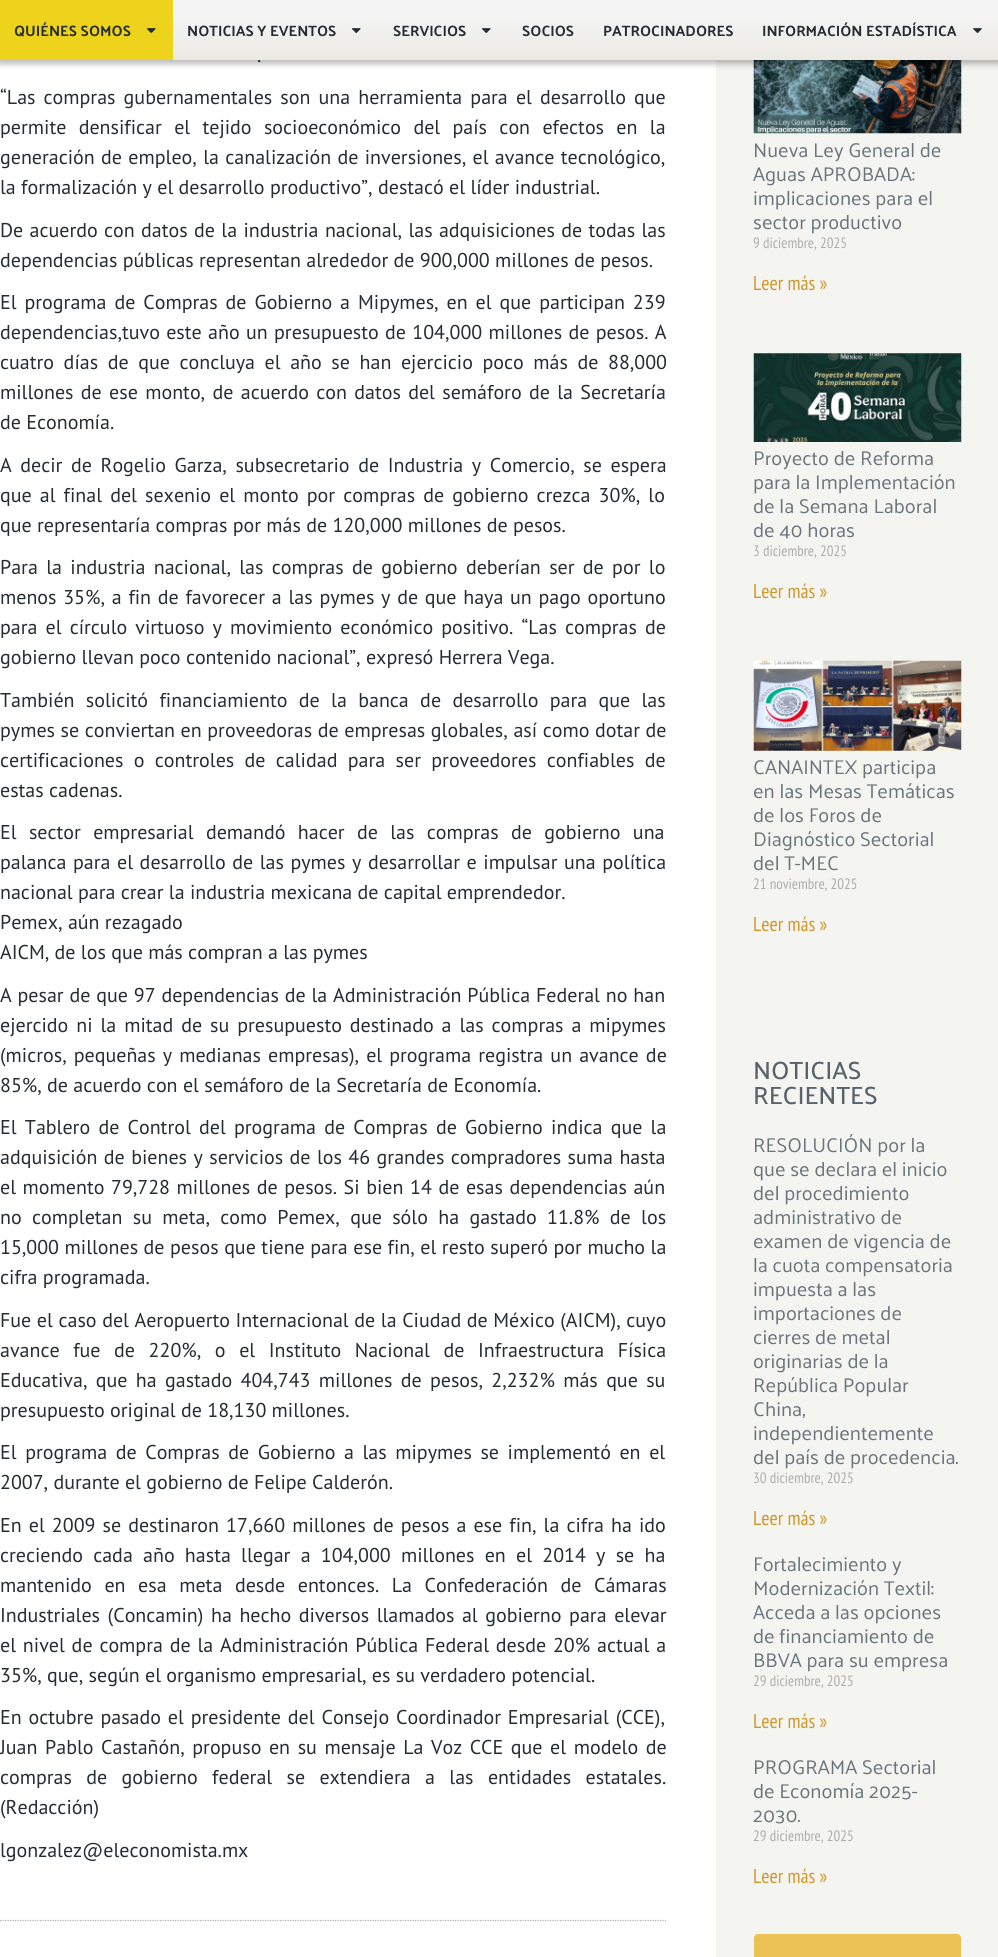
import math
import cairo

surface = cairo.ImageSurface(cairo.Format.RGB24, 998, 1957)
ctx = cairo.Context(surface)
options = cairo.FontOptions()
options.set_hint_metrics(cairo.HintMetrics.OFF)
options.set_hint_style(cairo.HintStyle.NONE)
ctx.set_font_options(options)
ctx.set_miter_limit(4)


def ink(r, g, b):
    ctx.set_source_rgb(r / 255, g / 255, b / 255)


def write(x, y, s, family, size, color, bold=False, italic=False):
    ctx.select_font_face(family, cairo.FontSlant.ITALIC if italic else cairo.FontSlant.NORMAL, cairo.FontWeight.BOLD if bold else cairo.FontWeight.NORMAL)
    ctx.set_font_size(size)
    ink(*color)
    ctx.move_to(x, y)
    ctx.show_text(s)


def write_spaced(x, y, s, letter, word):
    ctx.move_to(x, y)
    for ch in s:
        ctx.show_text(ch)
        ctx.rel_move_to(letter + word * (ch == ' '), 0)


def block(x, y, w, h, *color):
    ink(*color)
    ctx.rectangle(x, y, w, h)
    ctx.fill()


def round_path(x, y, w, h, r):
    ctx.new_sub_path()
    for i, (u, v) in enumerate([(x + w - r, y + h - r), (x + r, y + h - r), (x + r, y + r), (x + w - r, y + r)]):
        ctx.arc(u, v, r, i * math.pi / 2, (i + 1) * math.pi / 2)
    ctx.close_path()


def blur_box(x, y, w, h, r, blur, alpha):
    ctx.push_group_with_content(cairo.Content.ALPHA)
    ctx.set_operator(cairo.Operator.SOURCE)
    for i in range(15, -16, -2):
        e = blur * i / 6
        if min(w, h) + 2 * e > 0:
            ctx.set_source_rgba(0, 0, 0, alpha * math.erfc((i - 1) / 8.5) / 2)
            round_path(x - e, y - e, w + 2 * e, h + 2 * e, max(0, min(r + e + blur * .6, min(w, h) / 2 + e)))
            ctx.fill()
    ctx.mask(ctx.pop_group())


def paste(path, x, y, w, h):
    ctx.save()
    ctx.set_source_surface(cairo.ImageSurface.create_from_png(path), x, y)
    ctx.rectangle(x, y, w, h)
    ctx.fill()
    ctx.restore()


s1 = dict(family="PT Sans", size=20, color=(37, 45, 51))
s2 = dict(family="Palanquin", size=15, color=(37, 45, 51), bold=True)
s3 = dict(family="Palanquin", size=20, color=(106, 116, 124))
s4 = dict(family="PT Sans Narrow", size=15, color=(173, 173, 173))
s5 = dict(family="PT Sans Narrow", size=20, color=(209, 150, 43))
s6 = dict(family="Palanquin Medium", size=25, color=(87, 98, 107))

ink(255, 255, 255)
ctx.paint()
block(716, 60, 282, 1897, 244, 244, 240)
paste("pic4.png", 753, 60, 209, 74)
ink(0, 0, 0)
blur_box(-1, 1, 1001, 63, 0, 3, 0.27)
write(257, 62, ".", **s1)
gradient = cairo.LinearGradient(499, 0, 499, 60)
gradient.add_color_stop_rgba(0.28, 0.957, 0.957, 0.957, 1)
gradient.add_color_stop_rgba(1, 0.918, 0.914, 0.89, 1)
ctx.set_source(gradient)
ctx.rectangle(173, 0, 825, 60)
ctx.fill()
block(0, 0, 173, 60, 238, 211, 28)
write(14, 36, "QUIÉNES SOMOS", **s2)
paste("pic1.png", 146, 28, 10, 5)
write(187, 36, "NOTICIAS Y EVENTOS", **s2)
paste("pic2.png", 351, 28, 10, 5)
write(393, 36, "SERVICIOS", **s2)
paste("pic2.png", 481, 28, 10, 5)
write(522, 36, "SOCIOS", **s2)
write(603, 36, "PATROCINADORES", **s2)
write(762, 36, "INFORMACIÓN ESTADÍSTICA", **s2)
paste("pic3.png", 973, 28, 9, 5)
ctx.select_font_face("PT Sans")
ctx.set_font_size(20)
write_spaced(0, 104, "“Las compras gubernamentales son una herramienta para el desarrollo que", 0, 2.75)
write_spaced(0, 134, "permite densificar el tejido socioeconómico del país con efectos en la", 0, 7)
write_spaced(0, 164, "generación de empleo, la canalización de inversiones, el avance tecnológico,", 0, 1)
write(0, 194, "la formalización y el desarrollo productivo”, destacó el líder industrial.", **s1)
write_spaced(0, 237, "De acuerdo con datos de la industria nacional, las adquisiciones de todas las", 0, 1)
write(0, 267, "dependencias públicas representan alrededor de 900,000 millones de pesos.", **s1)
write_spaced(0, 309, "El programa de Compras de Gobierno a Mipymes, en el que participan 239", 0, 2.6)
write_spaced(0, 339, "dependencias,tuvo este año un presupuesto de 104,000 millones de pesos. A", 0, 1)
write_spaced(0, 369, "cuatro días de que concluya el año se han ejercicio poco más de 88,000", 0, 4.25)
write_spaced(0, 399, "millones de ese monto, de acuerdo con datos del semáforo de la Secretaría", 0, 2)
write(0, 429, "de Economía.", **s1)
write_spaced(0, 472, "A decir de Rogelio Garza, subsecretario de Industria y Comercio, se espera", 0, 3.25)
write_spaced(0, 502, "que al final del sexenio el monto por compras de gobierno crezca 30%, lo", 0, 2.75)
write(0, 532, "que representaría compras por más de 120,000 millones de pesos.", **s1)
write_spaced(0, 574, "Para la industria nacional, las compras de gobierno deberían ser de por lo", 0, 3)
write_spaced(0, 604, "menos 35%, a fin de favorecer a las pymes y de que haya un pago oportuno", 0, 1.4)
write_spaced(0, 634, "para el círculo virtuoso y movimiento económico positivo. “Las compras de", 0, 2.75)
write(0, 664, "gobierno llevan poco contenido nacional”, expresó Herrera Vega.", **s1)
write_spaced(0, 707, "También solicitó financiamiento de la banca de desarrollo para que las", 0, 6)
write_spaced(0, 737, "pymes se conviertan en proveedoras de empresas globales, así como dotar de", 0, 0.25)
write_spaced(0, 767, "certificaciones o controles de calidad para ser proveedores confiables de", 0, 5)
write(0, 797, "estas cadenas.", **s1)
write_spaced(0, 839, "El sector empresarial demandó hacer de las compras de gobierno una", 0, 7)
write_spaced(0, 869, "palanca para el desarrollo de las pymes y desarrollar e impulsar una política", 0, 1.25)
write(0, 899, "nacional para crear la industria mexicana de capital emprendedor.", **s1)
write(0, 929, "Pemex, aún rezagado", **s1)
write(0, 959, "AICM, de los que más compran a las pymes", **s1)
write_spaced(0, 1002, "A pesar de que 97 dependencias de la Administración Pública Federal no han", 0, 0.5)
write_spaced(0, 1032, "ejercido ni la mitad de su presupuesto destinado a las compras a mipymes", 0, 2.6)
write_spaced(0, 1062, "(micros, pequeñas y medianas empresas), el programa registra un avance de", 0, 1.75)
write(0, 1092, "85%, de acuerdo con el semáforo de la Secretaría de Economía.", **s1)
write_spaced(0, 1134, "El Tablero de Control del programa de Compras de Gobierno indica que la", 0, 2.9)
write_spaced(0, 1164, "adquisición de bienes y servicios de los 46 grandes compradores suma hasta", 0, 1.1)
write_spaced(0, 1194, "el momento 79,728 millones de pesos. Si bien 14 de esas dependencias aún", 0, 1.25)
write_spaced(0, 1224, "no completan su meta, como Pemex, que sólo ha gastado 11.8% de los", 0, 5)
write_spaced(0, 1254, "15,000 millones de pesos que tiene para ese fin, el resto superó por mucho la", 0, 0.2)
write(0, 1284, "cifra programada.", **s1)
write_spaced(0, 1327, "Fue el caso del Aeropuerto Internacional de la Ciudad de México (AICM), cuyo", 0, 0.25)
write_spaced(0, 1357, "avance fue de 220%, o el Instituto Nacional de Infraestructura Física", 0, 8.25)
write_spaced(0, 1387, "Educativa, que ha gastado 404,743 millones de pesos, 2,232% más que su", 0, 3)
write(0, 1417, "presupuesto original de 18,130 millones.", **s1)
write_spaced(0, 1459, "El programa de Compras de Gobierno a las mipymes se implementó en el", 0, 3.25)
write(0, 1489, "2007, durante el gobierno de Felipe Calderón.", **s1)
write_spaced(0, 1532, "En el 2009 se destinaron 17,660 millones de pesos a ese fin, la cifra ha ido", 0, 1.75)
write_spaced(0, 1562, "creciendo cada año hasta llegar a 104,000 millones en el 2014 y se ha", 0, 4.9)
write_spaced(0, 1592, "mantenido en esa meta desde entonces. La Confederación de Cámaras", 0, 7.25)
write_spaced(0, 1622, "Industriales (Concamin) ha hecho diversos llamados al gobierno para elevar", 0, 2.25)
write_spaced(0, 1652, "el nivel de compra de la Administración Pública Federal desde 20% actual a", 0, 1.5)
write(0, 1682, "35%, que, según el organismo empresarial, es su verdadero potencial.", **s1)
write_spaced(0, 1724, "En octubre pasado el presidente del Consejo Coordinador Empresarial (CCE),", 0, 1.5)
write_spaced(0, 1754, "Juan Pablo Castañón, propuso en su mensaje La Voz CCE que el modelo de", 0, 2.25)
write_spaced(0, 1784, "compras de gobierno federal se extendiera a las entidades estatales.", 0, 9)
write(0, 1814, "(Redacción)", **s1)
write(0, 1857, "lgonzalez@eleconomista.mx", **s1)
ctx.new_path()
ctx.move_to(0, 1920.5)
ctx.line_to(666, 1920.5)
ink(175, 175, 175)
ctx.set_line_width(1.2)
ctx.set_dash([1.25, 1.25])
ctx.stroke()
write(753, 157, "Nueva Ley General de", **s3)
write(753, 181, "Aguas APROBADA:", **s3)
write(753, 205, "implicaciones para el", **s3)
write(753, 229, "sector productivo", **s3)
write(753, 248, "9 diciembre, 2025", **s4)
write(753, 290, "Leer más »", **s5)
paste("pic5.png", 753, 353, 209, 89)
write(753, 465, "Proyecto de Reforma", **s3)
write(753, 489, "para la Implementación", **s3)
write(753, 513, "de la Semana Laboral", **s3)
write(753, 537, "de 40 horas", **s3)
write(753, 556, "3 diciembre, 2025", **s4)
write(753, 598, "Leer más »", **s5)
paste("pic6.png", 753, 660, 209, 91)
write(753, 774, "CANAINTEX participa", **s3)
write(753, 798, "en las Mesas Temáticas", **s3)
write(753, 822, "de los Foros de", **s3)
write(753, 846, "Diagnóstico Sectorial", **s3)
write(753, 870, "del T-MEC", **s3)
write(753, 889, "21 noviembre, 2025", **s4)
write(753, 931, "Leer más »", **s5)
write(753, 1079, "NOTICIAS", **s6)
write(753, 1104, "RECIENTES", **s6)
write(753, 1152, "RESOLUCIÓN por la", **s3)
write(753, 1176, "que se declara el inicio", **s3)
write(753, 1200, "del procedimiento", **s3)
write(753, 1224, "administrativo de", **s3)
write(753, 1248, "examen de vigencia de", **s3)
write(753, 1272, "la cuota compensatoria", **s3)
write(753, 1296, "impuesta a las", **s3)
write(753, 1320, "importaciones de", **s3)
write(753, 1344, "cierres de metal", **s3)
write(753, 1368, "originarias de la", **s3)
write(753, 1392, "República Popular", **s3)
write(753, 1416, "China,", **s3)
write(753, 1440, "independientemente", **s3)
write(753, 1464, "del país de procedencia.", **s3)
write(753, 1483, "30 diciembre, 2025", **s4)
write(753, 1525, "Leer más »", **s5)
write(753, 1571, "Fortalecimiento y", **s3)
write(753, 1595, "Modernización Textil:", **s3)
write(753, 1619, "Acceda a las opciones", **s3)
write(753, 1643, "de financiamiento de", **s3)
write(753, 1667, "BBVA para su empresa", **s3)
write(753, 1686, "29 diciembre, 2025", **s4)
write(753, 1728, "Leer más »", **s5)
write(753, 1774, "PROGRAMA Sectorial", **s3)
write(753, 1798, "de Economía 2025-", **s3)
write(753, 1822, "2030.", **s3)
write(753, 1841, "29 diciembre, 2025", **s4)
write(753, 1883, "Leer más »", **s5)
ink(235, 194, 83)
round_path(754, 1934, 207, 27, 4)
ctx.fill()
surface.write_to_png("screenshot.png")
